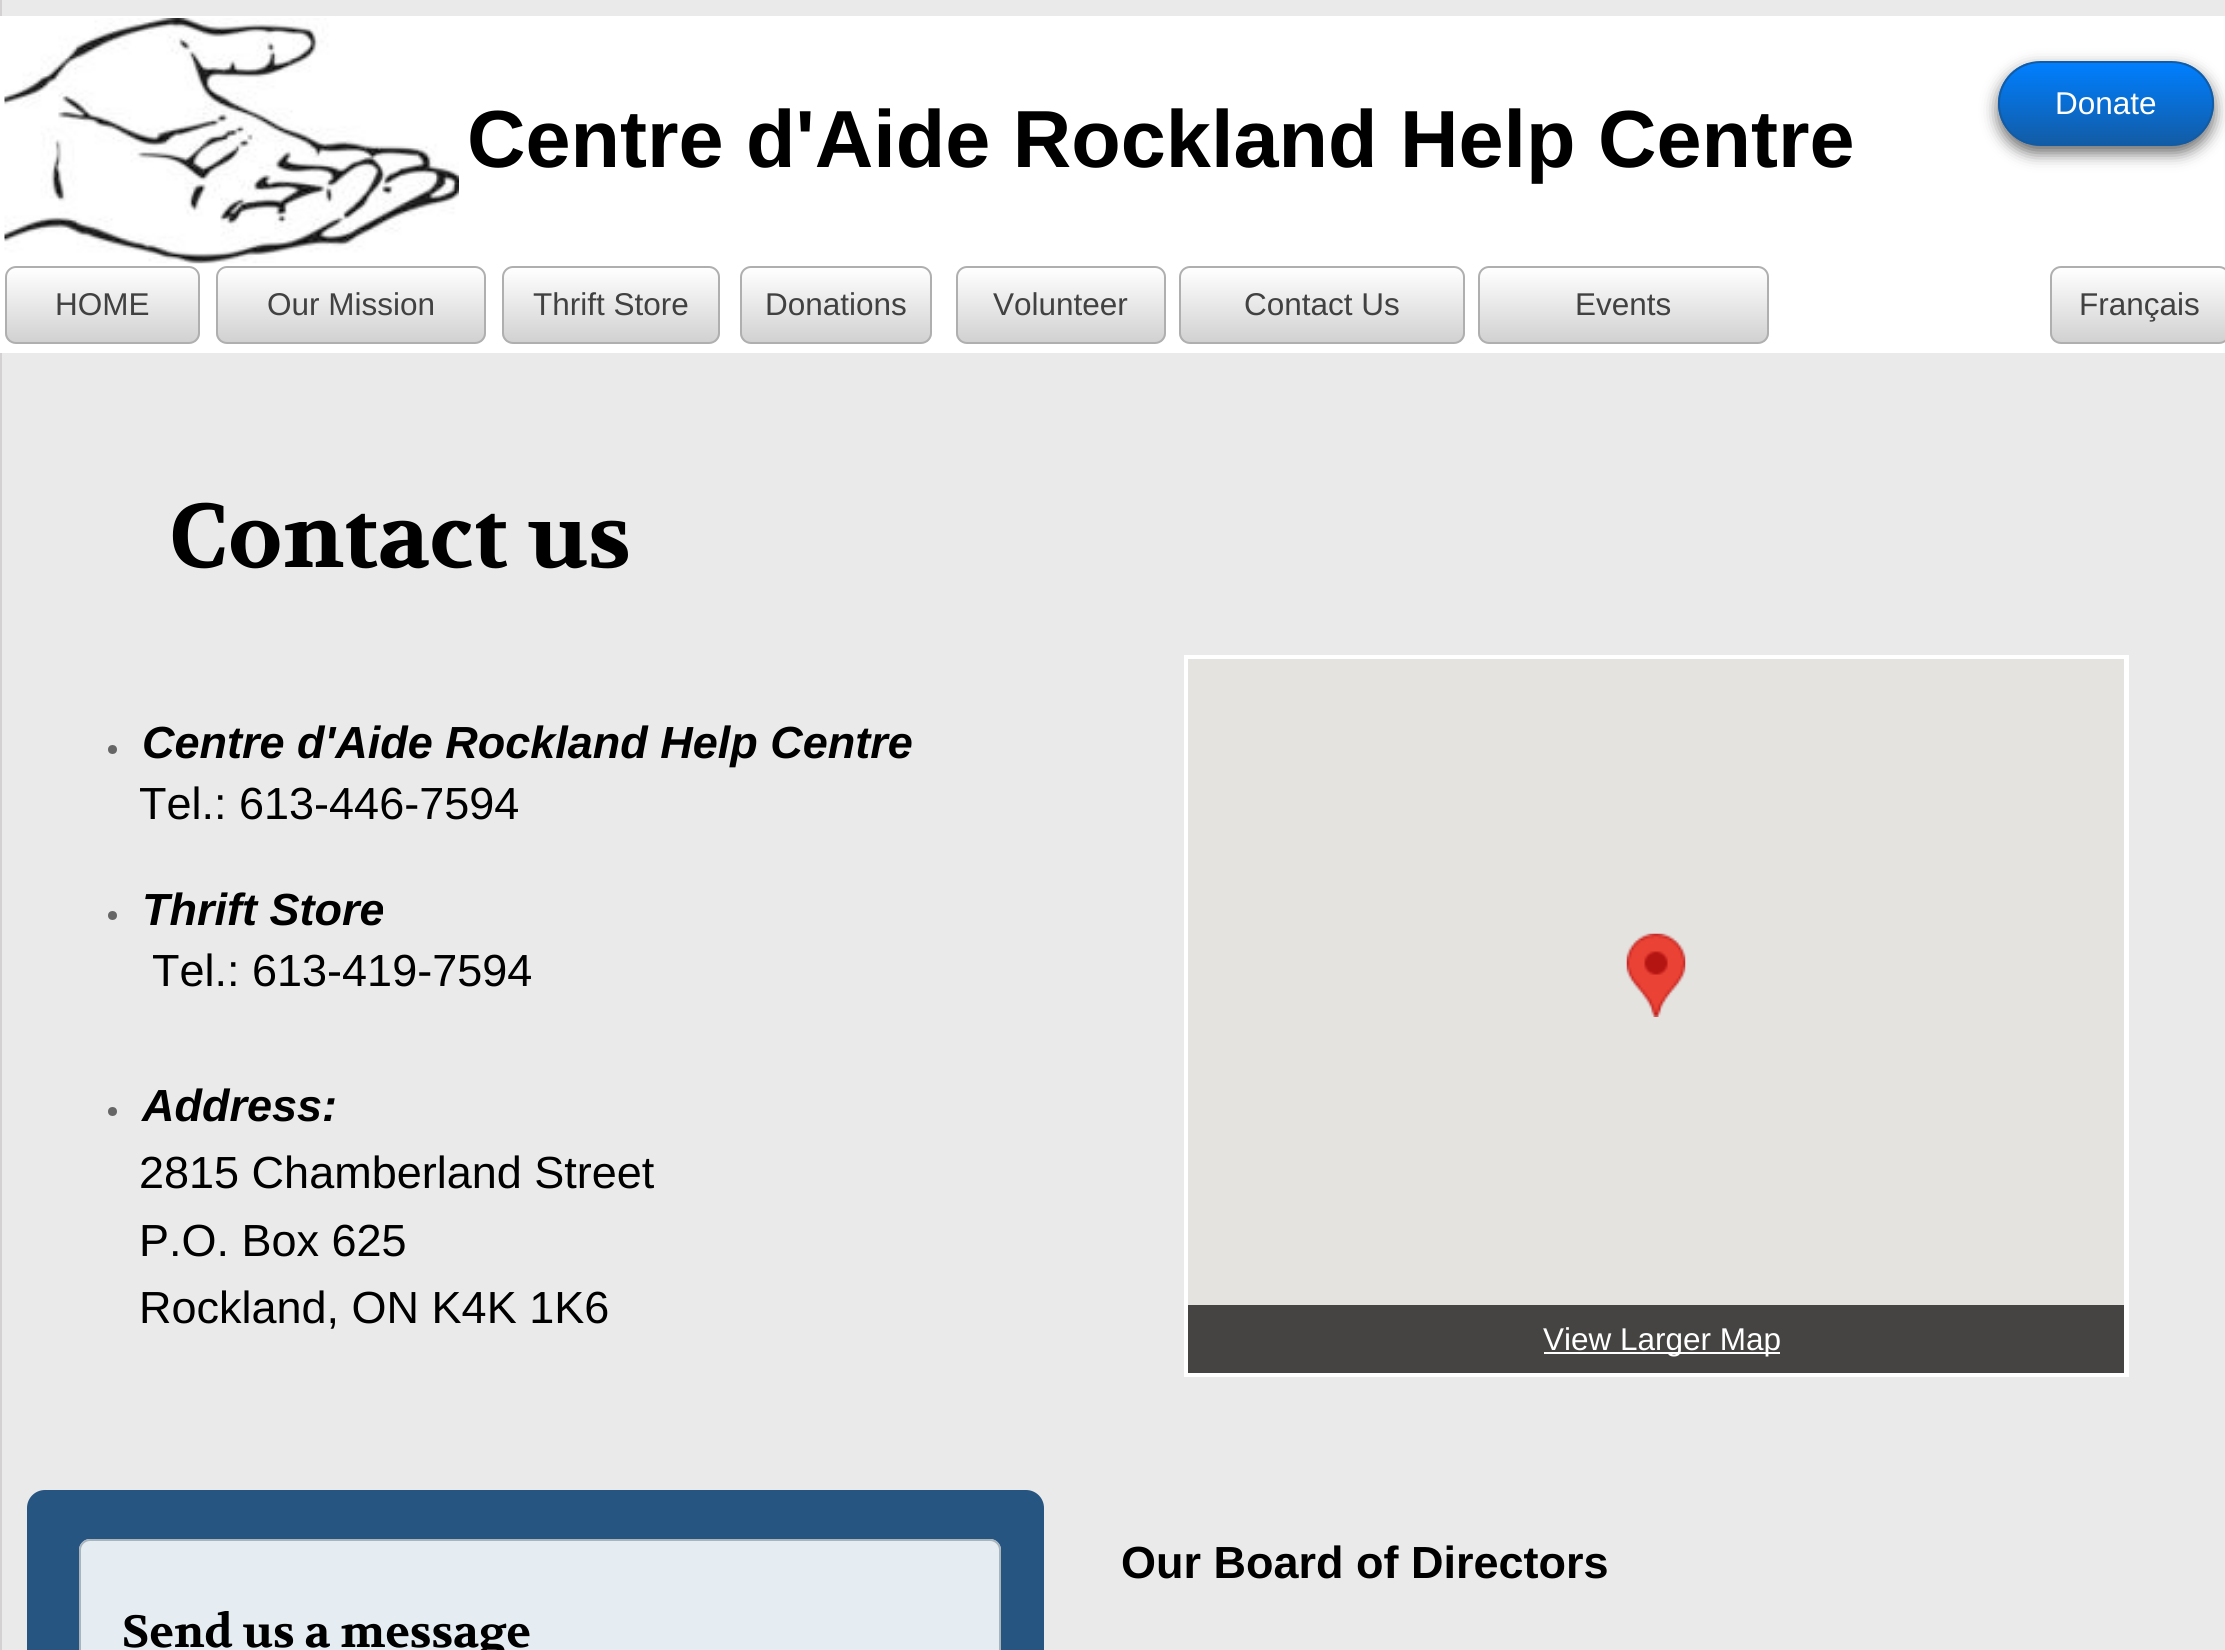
import math
import cairo

surface = cairo.ImageSurface(cairo.Format.RGB24, 2225, 1650)
ctx = cairo.Context(surface)
options = cairo.FontOptions()
options.set_hint_metrics(cairo.HintMetrics.OFF)
options.set_hint_style(cairo.HintStyle.NONE)
ctx.set_font_options(options)
ctx.set_miter_limit(4)


def ink(r, g, b):
    ctx.set_source_rgb(r / 255, g / 255, b / 255)


def write(x, y, s, family, size, color, bold=False, italic=False):
    ctx.select_font_face(family, cairo.FontSlant.ITALIC if italic else cairo.FontSlant.NORMAL, cairo.FontWeight.BOLD if bold else cairo.FontWeight.NORMAL)
    ctx.set_font_size(size)
    ink(*color)
    ctx.move_to(x, y)
    ctx.show_text(s)


def block(x, y, w, h, *color):
    ink(*color)
    ctx.rectangle(x, y, w, h)
    ctx.fill()


def round_path(x, y, w, h, r):
    ctx.new_sub_path()
    for i, (u, v) in enumerate([(x + w - r, y + h - r), (x + r, y + h - r), (x + r, y + r), (x + w - r, y + r)]):
        ctx.arc(u, v, r, i * math.pi / 2, (i + 1) * math.pi / 2)
    ctx.close_path()


def blur_box(x, y, w, h, r, blur, alpha):
    ctx.push_group_with_content(cairo.Content.ALPHA)
    ctx.set_operator(cairo.Operator.SOURCE)
    for i in range(15, -16, -2):
        e = blur * i / 6
        if min(w, h) + 2 * e > 0:
            ctx.set_source_rgba(0, 0, 0, alpha * math.erfc((i - 1) / 8.5) / 2)
            round_path(x - e, y - e, w + 2 * e, h + 2 * e, max(0, min(r + e + blur * .6, min(w, h) / 2 + e)))
            ctx.fill()
    ctx.mask(ctx.pop_group())


def paste(path, x, y, w, h):
    ctx.save()
    ctx.set_source_surface(cairo.ImageSurface.create_from_png(path), x, y)
    ctx.rectangle(x, y, w, h)
    ctx.fill()
    ctx.restore()


s1 = dict(family="Liberation Sans", size=31.5, color=(255, 255, 255))
s2 = dict(family="Liberation Sans", size=81, color=(0, 0, 0), bold=True)
s3 = dict(family="Liberation Sans", size=31.5, color=(65, 65, 65))
s4 = dict(family="Volkhov", size=90, color=(0, 0, 0), bold=True)
s5 = dict(family="Liberation Sans", size=45, color=(0, 0, 0), bold=True, italic=True)
s6 = dict(family="Liberation Sans", size=45, color=(0, 0, 0))
s7 = dict(family="Liberation Sans", size=45, color=(0, 0, 0), bold=True)
s8 = dict(family="Volkhov", size=45, color=(0, 0, 0), bold=True)

ink(234, 234, 234)
ctx.paint()
block(0, 0, 2, 1650, 211, 209, 209)
block(0, 16, 2225, 337, 255, 255, 255)
paste("pic1.png", 4, 18, 455, 246)
ink(50, 50, 50)
blur_box(1998, 68, 216, 85, 42.5, 8, 0.75)
ctx.save()
round_path(1998, 61, 216, 85, 42.5)
ctx.clip()
gradient = cairo.LinearGradient(2106, 63, 2106, 144)
gradient.add_color_stop_rgba(0, 0, 0.498, 1, 1)
gradient.add_color_stop_rgba(1, 0.071, 0.361, 0.651, 1)
ctx.set_source(gradient)
ctx.rectangle(1998, 63, 216, 81)
ctx.fill()
ctx.restore()
round_path(1999, 62, 214, 83, 41.5)
ink(18, 92, 166)
ctx.stroke()
write(2055, 114, "Donate", **s1)
write(467, 167, "Centre d'Aide Rockland Help Centre", **s2)
ctx.save()
round_path(5, 266, 195, 78, 11)
ctx.clip()
gradient = cairo.LinearGradient(102, 268, 102, 342)
gradient.add_color_stop_rgba(0, 1, 1, 1, 1)
gradient.add_color_stop_rgba(1, 0.82, 0.82, 0.82, 1)
ctx.set_source(gradient)
ctx.rectangle(5, 268, 195, 74)
ctx.fill()
ctx.restore()
round_path(6, 267, 193, 76, 10)
ink(175, 175, 175)
ctx.stroke()
write(55, 315, "HOME", **s3)
ctx.save()
round_path(216, 266, 270, 78, 11)
ctx.clip()
gradient = cairo.LinearGradient(351, 268, 351, 342)
gradient.add_color_stop_rgba(0, 1, 1, 1, 1)
gradient.add_color_stop_rgba(1, 0.82, 0.82, 0.82, 1)
ctx.set_source(gradient)
ctx.rectangle(216, 268, 270, 74)
ctx.fill()
ctx.restore()
round_path(217, 267, 268, 76, 10)
ink(175, 175, 175)
ctx.stroke()
write(267, 315, "Our Mission", **s3)
ctx.save()
round_path(502, 266, 218, 78, 11)
ctx.clip()
gradient = cairo.LinearGradient(611, 268, 611, 342)
gradient.add_color_stop_rgba(0, 1, 1, 1, 1)
gradient.add_color_stop_rgba(1, 0.82, 0.82, 0.82, 1)
ctx.set_source(gradient)
ctx.rectangle(502, 268, 218, 74)
ctx.fill()
ctx.restore()
round_path(503, 267, 216, 76, 10)
ink(175, 175, 175)
ctx.stroke()
write(533, 315, "Thrift Store", **s3)
ctx.save()
round_path(740, 266, 192, 78, 11)
ctx.clip()
gradient = cairo.LinearGradient(836, 268, 836, 342)
gradient.add_color_stop_rgba(0, 1, 1, 1, 1)
gradient.add_color_stop_rgba(1, 0.82, 0.82, 0.82, 1)
ctx.set_source(gradient)
ctx.rectangle(740, 268, 192, 74)
ctx.fill()
ctx.restore()
round_path(741, 267, 190, 76, 10)
ink(175, 175, 175)
ctx.stroke()
write(765, 315, "Donations", **s3)
ctx.save()
round_path(956, 266, 210, 78, 11)
ctx.clip()
gradient = cairo.LinearGradient(1061, 268, 1061, 342)
gradient.add_color_stop_rgba(0, 1, 1, 1, 1)
gradient.add_color_stop_rgba(1, 0.82, 0.82, 0.82, 1)
ctx.set_source(gradient)
ctx.rectangle(956, 268, 210, 74)
ctx.fill()
ctx.restore()
round_path(957, 267, 208, 76, 10)
ink(175, 175, 175)
ctx.stroke()
write(993, 315, "Volunteer", **s3)
ctx.save()
round_path(1179, 266, 286, 78, 11)
ctx.clip()
gradient = cairo.LinearGradient(1322, 268, 1322, 342)
gradient.add_color_stop_rgba(0, 1, 1, 1, 1)
gradient.add_color_stop_rgba(1, 0.82, 0.82, 0.82, 1)
ctx.set_source(gradient)
ctx.rectangle(1179, 268, 286, 74)
ctx.fill()
ctx.restore()
round_path(1180, 267, 284, 76, 10)
ink(175, 175, 175)
ctx.stroke()
write(1244, 315, "Contact Us", **s3)
ctx.save()
round_path(1478, 266, 291, 78, 11)
ctx.clip()
gradient = cairo.LinearGradient(1623, 268, 1623, 342)
gradient.add_color_stop_rgba(0, 1, 1, 1, 1)
gradient.add_color_stop_rgba(1, 0.82, 0.82, 0.82, 1)
ctx.set_source(gradient)
ctx.rectangle(1478, 268, 291, 74)
ctx.fill()
ctx.restore()
round_path(1479, 267, 289, 76, 10)
ink(175, 175, 175)
ctx.stroke()
write(1575, 315, "Events", **s3)
ctx.save()
round_path(2050, 266, 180, 78, 11)
ctx.clip()
gradient = cairo.LinearGradient(2140, 268, 2140, 342)
gradient.add_color_stop_rgba(0, 1, 1, 1, 1)
gradient.add_color_stop_rgba(1, 0.82, 0.82, 0.82, 1)
ctx.set_source(gradient)
ctx.rectangle(2050, 268, 175, 74)
ctx.fill()
ctx.restore()
round_path(2051, 267, 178, 76, 10)
ink(175, 175, 175)
ctx.stroke()
write(2079, 315, "Français", **s3)
write(169, 567, "Contact us", **s4)
ink(102, 102, 102)
ctx.new_path()
ctx.arc(112.5, 749.5, 4.5, 0, 2 * math.pi)
ctx.fill()
write(142, 758, "Centre d'Aide Rockland Help Centre", **s5)
write(139, 819, "Tel.: 613-446-7594", **s6)
ink(102, 102, 102)
ctx.new_path()
ctx.arc(112.5, 915.5, 4.5, 0, 2 * math.pi)
ctx.fill()
write(142, 925, "Thrift Store", **s5)
write(152, 986, "Tel.: 613-419-7594", **s6)
ink(102, 102, 102)
ctx.new_path()
ctx.arc(112.5, 1111.5, 4.5, 0, 2 * math.pi)
ctx.fill()
write(142, 1121, "Address:", **s5)
write(139, 1188, "2815 Chamberland Street", **s6)
write(139, 1256, "P.O. Box 625", **s6)
write(139, 1323, "Rockland, ON K4K 1K6", **s6)
ctx.rectangle(1186.5, 657.5, 940, 717)
ink(255, 255, 255)
ctx.set_line_width(5)
ctx.stroke()
block(1188, 659, 936, 646, 229, 227, 223)
paste("pic2.png", 1626, 933, 60, 84)
block(1188, 1305, 936, 68, 69, 68, 67)
block(1544, 1352, 236, 2, 255, 255, 255)
write(1543, 1350, "View Larger Map", **s1)
ink(39, 85, 129)
ctx.new_path()
ctx.move_to(45, 1490)
ctx.line_to(1026, 1490)
ctx.curve_to(1036, 1490, 1044, 1498, 1044, 1508)
ctx.line_to(1044, 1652)
ctx.line_to(27, 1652)
ctx.line_to(27, 1508)
ctx.curve_to(27, 1498, 35, 1490, 45, 1490)
ctx.close_path()
ctx.fill()
ink(229, 237, 242)
ctx.new_path()
ctx.move_to(90, 1539)
ctx.line_to(990, 1539)
ctx.curve_to(996, 1539, 1001, 1544, 1001, 1550)
ctx.line_to(1001, 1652)
ctx.line_to(79, 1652)
ctx.line_to(79, 1550)
ctx.curve_to(79, 1544, 84, 1539, 90, 1539)
ctx.close_path()
ctx.fill()
round_path(80, 1540, 920, 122, 10)
ink(169, 180, 187)
ctx.set_line_width(2)
ctx.stroke()
write(1121, 1578, "Our Board of Directors", **s7)
write(122, 1647, "Send us a message", **s8)
surface.write_to_png("screenshot.png")
